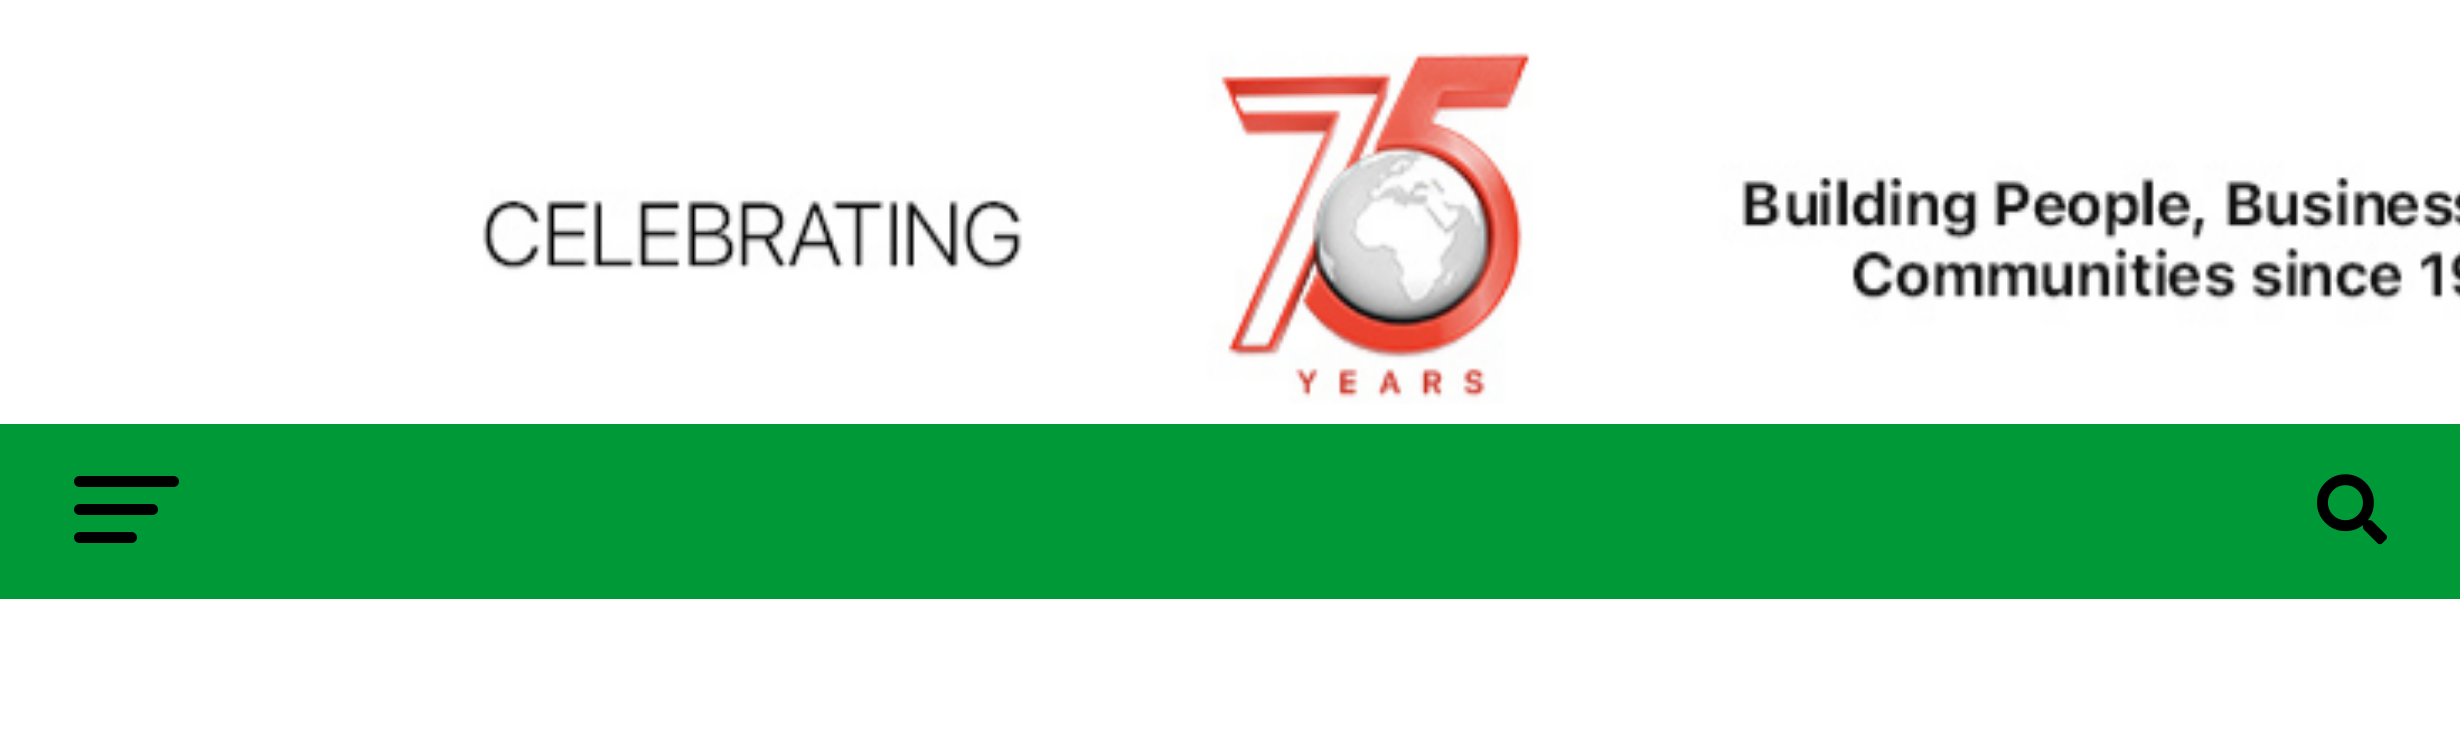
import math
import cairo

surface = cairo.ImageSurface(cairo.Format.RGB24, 2460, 747)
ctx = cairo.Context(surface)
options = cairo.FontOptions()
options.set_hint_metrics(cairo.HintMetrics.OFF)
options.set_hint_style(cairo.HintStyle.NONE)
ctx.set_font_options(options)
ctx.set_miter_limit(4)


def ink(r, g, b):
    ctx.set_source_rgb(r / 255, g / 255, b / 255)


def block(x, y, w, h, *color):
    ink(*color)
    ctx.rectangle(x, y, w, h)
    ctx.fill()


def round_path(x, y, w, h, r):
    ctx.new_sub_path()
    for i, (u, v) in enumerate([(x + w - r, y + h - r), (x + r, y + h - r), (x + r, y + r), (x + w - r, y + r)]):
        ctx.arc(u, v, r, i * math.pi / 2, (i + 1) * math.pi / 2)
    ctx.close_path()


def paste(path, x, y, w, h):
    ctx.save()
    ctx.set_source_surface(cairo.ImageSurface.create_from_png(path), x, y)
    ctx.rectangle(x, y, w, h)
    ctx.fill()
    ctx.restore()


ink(255, 255, 255)
ctx.paint()
paste("pic1.png", 482, 52, 1978, 352)
block(0, 424, 2460, 175, 0, 153, 56)
ink(0, 0, 0)
round_path(74, 476, 105, 11, 5.5)
ctx.fill()
round_path(74, 504, 84, 11, 5.5)
ctx.fill()
round_path(74, 532, 63, 11, 5.5)
ctx.fill()
paste("pic2.png", 2317, 474, 70, 71)
surface.write_to_png("screenshot.png")
